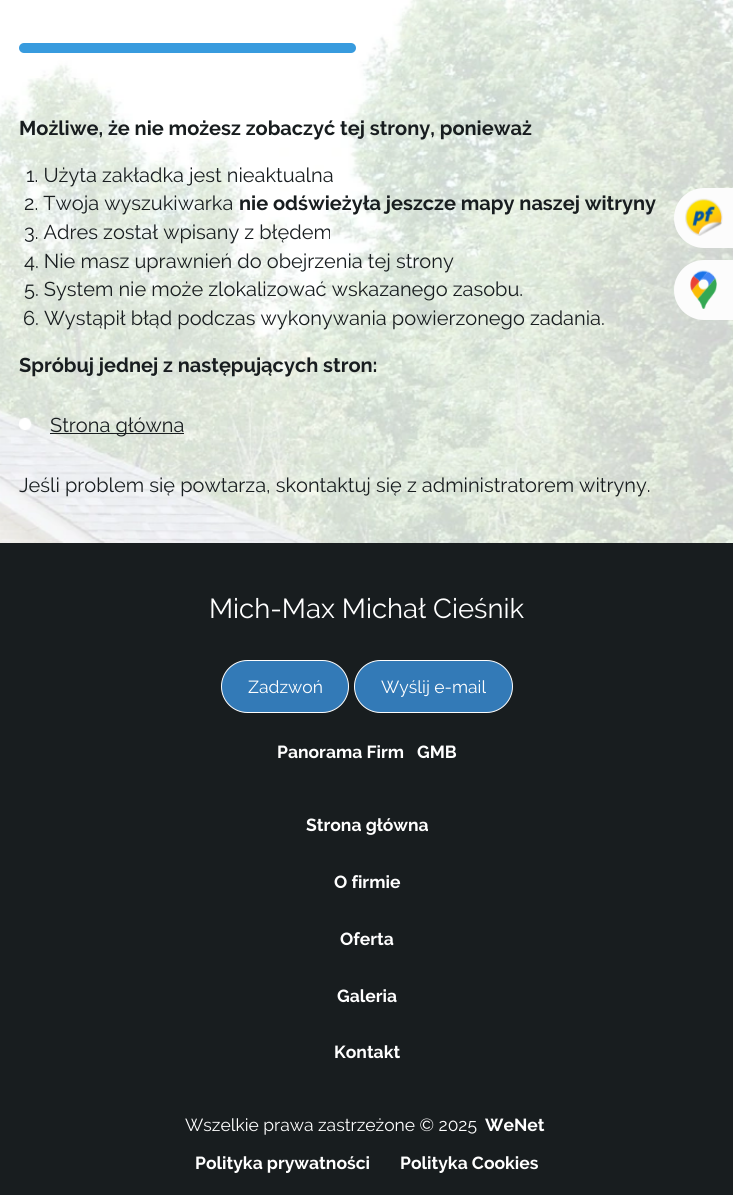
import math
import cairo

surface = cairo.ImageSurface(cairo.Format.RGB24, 733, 1195)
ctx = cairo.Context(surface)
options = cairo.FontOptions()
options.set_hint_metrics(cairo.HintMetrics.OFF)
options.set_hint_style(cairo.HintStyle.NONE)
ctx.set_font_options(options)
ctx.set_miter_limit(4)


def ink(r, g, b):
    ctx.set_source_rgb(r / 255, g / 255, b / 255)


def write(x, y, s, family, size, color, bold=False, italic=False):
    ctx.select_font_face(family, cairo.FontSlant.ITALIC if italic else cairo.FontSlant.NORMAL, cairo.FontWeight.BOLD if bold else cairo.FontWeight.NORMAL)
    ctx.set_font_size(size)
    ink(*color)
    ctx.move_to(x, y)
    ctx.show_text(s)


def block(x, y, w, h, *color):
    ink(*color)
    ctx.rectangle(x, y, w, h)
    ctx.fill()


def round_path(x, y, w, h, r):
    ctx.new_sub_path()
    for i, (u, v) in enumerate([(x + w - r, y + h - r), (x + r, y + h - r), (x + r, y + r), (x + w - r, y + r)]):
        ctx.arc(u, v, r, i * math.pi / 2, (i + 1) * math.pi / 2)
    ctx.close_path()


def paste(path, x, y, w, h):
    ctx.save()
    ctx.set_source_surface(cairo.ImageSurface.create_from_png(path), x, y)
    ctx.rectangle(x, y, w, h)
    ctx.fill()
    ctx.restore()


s1 = dict(family="Raleway", size=20, color=(24, 29, 31), bold=True)
s2 = dict(family="Raleway", size=20, color=(24, 29, 31))
s3 = dict(family="Raleway", size=27.5, color=(255, 255, 255))
s4 = dict(family="Raleway", size=17.5, color=(255, 255, 255))
s5 = dict(family="Raleway", size=17.5, color=(255, 255, 255), bold=True)

ink(255, 255, 255)
ctx.paint()
paste("pic1.png", 0, 0, 733, 543)
ink(56, 155, 222)
round_path(19, 43, 337, 10, 5)
ctx.fill()
write(19, 135, "Możliwe, że nie możesz zobaczyć tej strony, ponieważ", **s1)
write(26, 182, "1. Użyta zakładka jest nieaktualna", **s2)
write(24, 210, "2. Twoja wyszukiwarka", **s2)
write(239, 210, "nie odświeżyła jeszcze mapy naszej witryny", **s1)
write(24, 239, "3. Adres został wpisany z błędem", **s2)
write(24, 268, "4. Nie masz uprawnień do obejrzenia tej strony", **s2)
write(24, 296, "5. System nie może zlokalizować wskazanego zasobu.", **s2)
write(23, 325, "6. Wystąpił błąd podczas wykonywania powierzonego zadania.", **s2)
write(19, 372, "Spróbuj jednej z następujących stron:", **s1)
paste("pic2.png", 19, 417, 13, 14)
block(50, 433, 134, 1, 24, 29, 31)
write(50, 432, "Strona główna", **s2)
write(19, 492, "Jeśli problem się powtarza, skontaktuj się z administratorem witryny.", **s2)
ink(252, 252, 252)
ctx.new_path()
ctx.move_to(704, 188)
ctx.line_to(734, 188)
ctx.line_to(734, 248)
ctx.line_to(704, 248)
ctx.curve_to(687.5, 248, 674, 234.5, 674, 218)
ctx.curve_to(674, 201.5, 687.5, 188, 704, 188)
ctx.close_path()
ctx.fill()
paste("pic3.png", 685, 198, 38, 38)
ctx.new_path()
ctx.move_to(704, 260)
ctx.line_to(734, 260)
ctx.line_to(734, 320)
ctx.line_to(704, 320)
ctx.curve_to(687.5, 320, 674, 306.5, 674, 290)
ctx.curve_to(674, 273.5, 687.5, 260, 704, 260)
ctx.close_path()
ctx.fill()
paste("pic4.png", 690, 270, 27, 39)
block(0, 543, 733, 652, 24, 29, 31)
write(209, 618, "Mich-Max Michał Cieśnik", **s3)
ink(51, 122, 183)
round_path(221.5, 660.5, 127, 52, 26)
ctx.fill_preserve()
ink(252, 252, 252)
ctx.set_line_width(1)
ctx.stroke()
write(248, 693, "Zadzwoń", **s4)
ink(51, 122, 183)
round_path(354.5, 660.5, 158, 52, 26)
ctx.fill_preserve()
ink(252, 252, 252)
ctx.stroke()
write(381, 693, "Wyślij e-mail", **s4)
write(277, 758, "Panorama Firm", **s5)
write(417, 758, "GMB", **s5)
write(306, 831, "Strona główna", **s5)
write(334, 888, "O firmie", **s5)
write(340, 945, "Oferta", **s5)
write(337, 1002, "Galeria", **s5)
write(334, 1058, "Kontakt", **s5)
write(185, 1131, "Wszelkie prawa zastrzeżone © 2025", **s4)
write(485, 1131, "WeNet", **s5)
write(195, 1169, "Polityka prywatności", **s5)
write(400, 1169, "Polityka Cookies", **s5)
surface.write_to_png("screenshot.png")
